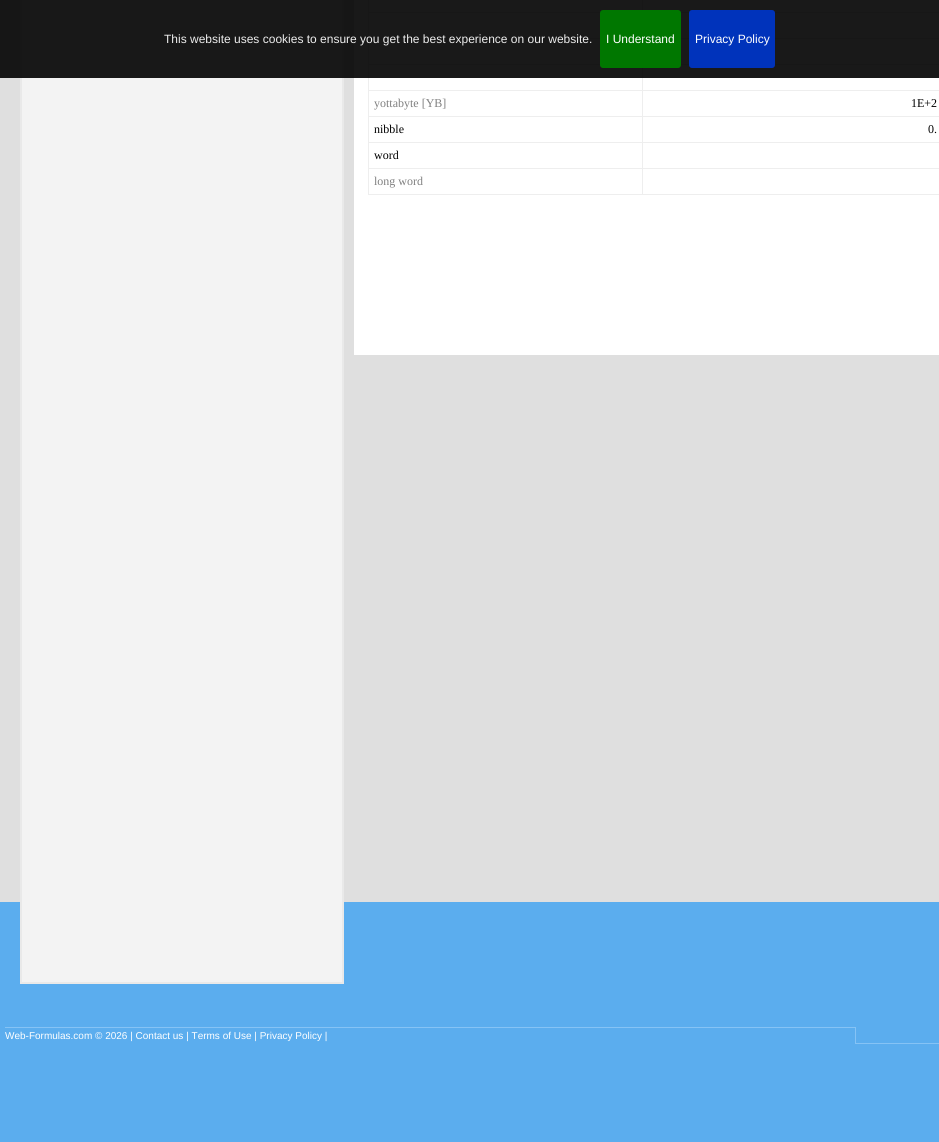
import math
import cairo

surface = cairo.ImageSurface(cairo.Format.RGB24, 939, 1142)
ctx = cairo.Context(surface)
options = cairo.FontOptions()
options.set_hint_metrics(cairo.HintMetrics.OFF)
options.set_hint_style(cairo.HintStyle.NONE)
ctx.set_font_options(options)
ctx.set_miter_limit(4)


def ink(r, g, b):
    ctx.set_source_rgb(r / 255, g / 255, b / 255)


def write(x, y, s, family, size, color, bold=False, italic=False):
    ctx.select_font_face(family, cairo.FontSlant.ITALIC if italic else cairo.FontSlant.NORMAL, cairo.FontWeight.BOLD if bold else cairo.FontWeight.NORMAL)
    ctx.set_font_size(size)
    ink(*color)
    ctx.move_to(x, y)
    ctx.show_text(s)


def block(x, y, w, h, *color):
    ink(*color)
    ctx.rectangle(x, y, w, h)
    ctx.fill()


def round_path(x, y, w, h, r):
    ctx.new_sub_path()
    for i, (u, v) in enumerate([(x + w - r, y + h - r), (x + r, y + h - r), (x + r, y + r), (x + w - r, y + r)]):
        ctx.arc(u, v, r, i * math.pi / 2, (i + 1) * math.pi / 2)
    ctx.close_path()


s1 = dict(family="Liberation Sans", size=12, color=(238, 238, 238))
s2 = dict(family="Liberation Sans", size=12, color=(255, 255, 255))
s3 = dict(family="Liberation Serif", size=12, color=(128, 128, 128))
s4 = dict(family="Liberation Serif", size=12, color=(0, 0, 0))
s5 = dict(family="Liberation Sans", size=10, color=(255, 255, 255))

ink(223, 223, 223)
ctx.paint()
block(0, 902, 939, 240, 91, 173, 238)
block(20, 0, 324, 984, 233, 233, 233)
block(22, 0, 320, 982, 243, 243, 243)
block(354, 0, 585, 355, 255, 255, 255)
block(368, 12, 233, 1, 238, 238, 238)
block(368, 38, 232, 1, 238, 238, 238)
block(368, 64, 232, 1, 238, 238, 238)
block(642, 90, 297, 1, 238, 238, 238)
block(642, 116, 297, 1, 238, 238, 238)
block(642, 142, 297, 1, 238, 238, 238)
block(642, 168, 297, 1, 238, 238, 238)
block(642, 194, 297, 1, 238, 238, 238)
block(642, 168, 1, 27, 238, 238, 238)
block(368, 168, 275, 1, 238, 238, 238)
block(642, 142, 1, 27, 238, 238, 238)
block(368, 142, 275, 1, 238, 238, 238)
block(642, 116, 1, 27, 238, 238, 238)
block(368, 116, 275, 1, 238, 238, 238)
block(642, 90, 1, 27, 238, 238, 238)
block(368, 90, 275, 1, 238, 238, 238)
block(368, 194, 275, 1, 238, 238, 238)
block(368, 168, 1, 27, 238, 238, 238)
block(368, 142, 1, 27, 238, 238, 238)
block(368, 116, 1, 27, 238, 238, 238)
block(368, 90, 1, 27, 238, 238, 238)
block(368, 64, 1, 27, 238, 238, 238)
block(368, 38, 1, 27, 238, 238, 238)
block(368, 0, 1, 39, 238, 238, 238)
block(680, 12, 259, 1, 238, 238, 238)
block(642, 0, 1, 13, 238, 238, 238)
block(681, 38, 258, 1, 238, 238, 238)
block(681, 64, 258, 1, 238, 238, 238)
block(642, 64, 1, 27, 238, 238, 238)
ctx.set_source_rgba(0, 0, 0, 0.9)
ctx.rectangle(0, 0, 939, 78)
ctx.fill()
write(164, 43, "This website uses cookies to ensure you get the best experience on our website.", **s1)
ink(0, 119, 0)
round_path(600, 10, 81, 58, 3)
ctx.fill()
write(606, 43, "I Understand", **s2)
ink(0, 51, 187)
round_path(689, 10, 86, 58, 3)
ctx.fill()
write(695, 43, "Privacy Policy", **s2)
write(374, 107, "yottabyte [YB]", **s3)
write(911, 107, "1E+2", **s4)
write(374, 133, "nibble", **s4)
write(928, 133, "0.", **s4)
write(374, 159, "word", **s4)
write(374, 185, "long word", **s3)
block(5, 1027, 850, 1, 133, 195, 245)
write(5, 1039, "Web-Formulas.com © 2026 | Contact us | Terms of Use | Privacy Policy |", **s5)
block(855, 1043, 84, 1, 133, 195, 245)
block(855, 1027, 1, 17, 133, 195, 245)
surface.write_to_png("screenshot.png")
